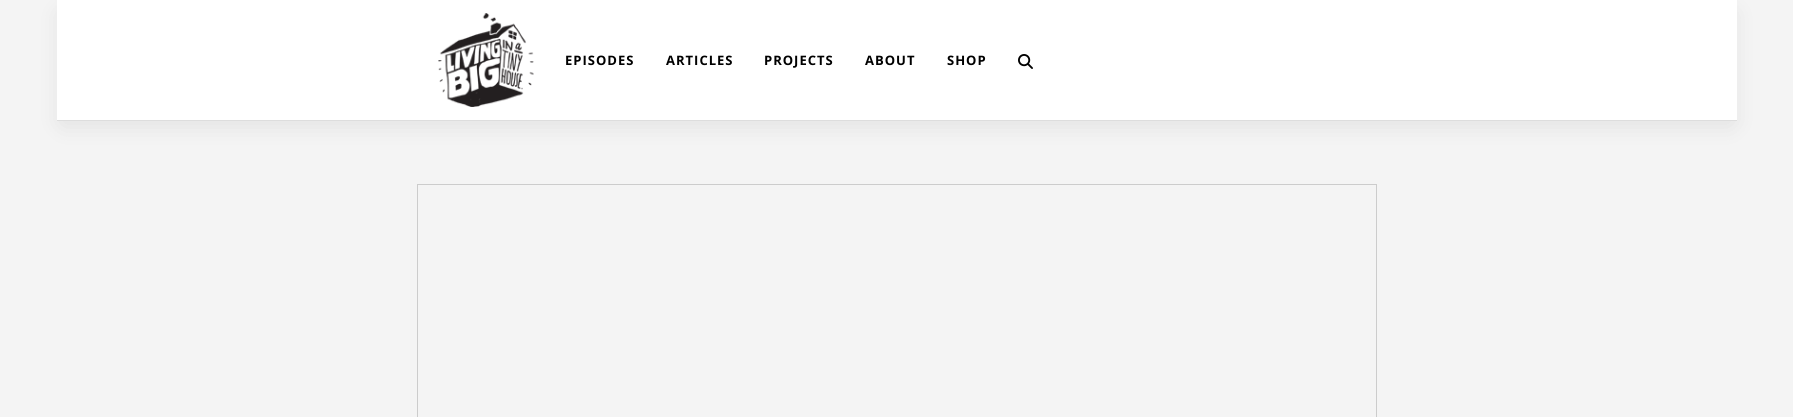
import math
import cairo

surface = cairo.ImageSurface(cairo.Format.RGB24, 1793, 417)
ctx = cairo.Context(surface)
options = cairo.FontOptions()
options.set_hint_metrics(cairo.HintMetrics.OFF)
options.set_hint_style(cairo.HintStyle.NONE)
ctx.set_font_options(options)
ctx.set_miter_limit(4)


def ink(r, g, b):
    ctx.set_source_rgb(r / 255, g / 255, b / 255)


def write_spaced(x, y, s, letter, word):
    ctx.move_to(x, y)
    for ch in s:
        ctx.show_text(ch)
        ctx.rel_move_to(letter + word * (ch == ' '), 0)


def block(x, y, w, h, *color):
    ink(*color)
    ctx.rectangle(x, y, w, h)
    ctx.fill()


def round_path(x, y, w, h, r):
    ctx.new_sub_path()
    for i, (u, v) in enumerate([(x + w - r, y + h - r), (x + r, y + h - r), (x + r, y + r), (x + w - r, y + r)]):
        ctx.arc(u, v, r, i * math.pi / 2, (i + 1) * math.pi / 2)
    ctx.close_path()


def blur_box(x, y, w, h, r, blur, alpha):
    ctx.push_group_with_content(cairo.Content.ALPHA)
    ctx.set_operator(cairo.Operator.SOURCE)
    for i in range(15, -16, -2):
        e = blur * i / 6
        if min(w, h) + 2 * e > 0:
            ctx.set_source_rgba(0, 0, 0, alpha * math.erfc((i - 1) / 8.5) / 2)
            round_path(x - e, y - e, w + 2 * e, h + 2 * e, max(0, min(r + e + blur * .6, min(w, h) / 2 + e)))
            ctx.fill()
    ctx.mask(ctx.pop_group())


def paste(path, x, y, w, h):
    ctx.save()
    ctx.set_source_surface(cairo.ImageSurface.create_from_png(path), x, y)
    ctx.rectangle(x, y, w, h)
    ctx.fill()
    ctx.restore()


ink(244, 244, 244)
ctx.paint()
ink(0, 0, 0)
blur_box(63, 14, 1668, 109, 0, 12, 0.1)
block(57, 0, 1680, 120, 255, 255, 255)
block(57, 120, 1680, 1, 221, 221, 221)
paste("pic1.png", 438, 13, 96, 94)
ctx.select_font_face("Open Sans", cairo.FontSlant.NORMAL, cairo.FontWeight.BOLD)
ctx.set_font_size(13)
ink(0, 0, 0)
write_spaced(565, 65, "EPISODES", 1, 0)
write_spaced(666, 65, "ARTICLES", 1, 0)
write_spaced(764, 65, "PROJECTS", 1, 0)
write_spaced(865, 65, "ABOUT", 1, 0)
write_spaced(947, 65, "SHOP", 1, 0)
paste("pic2.png", 1018, 54, 15, 15)
ctx.rectangle(417.5, 184.5, 959, 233)
ink(204, 204, 204)
ctx.set_line_width(1)
ctx.stroke()
surface.write_to_png("screenshot.png")
